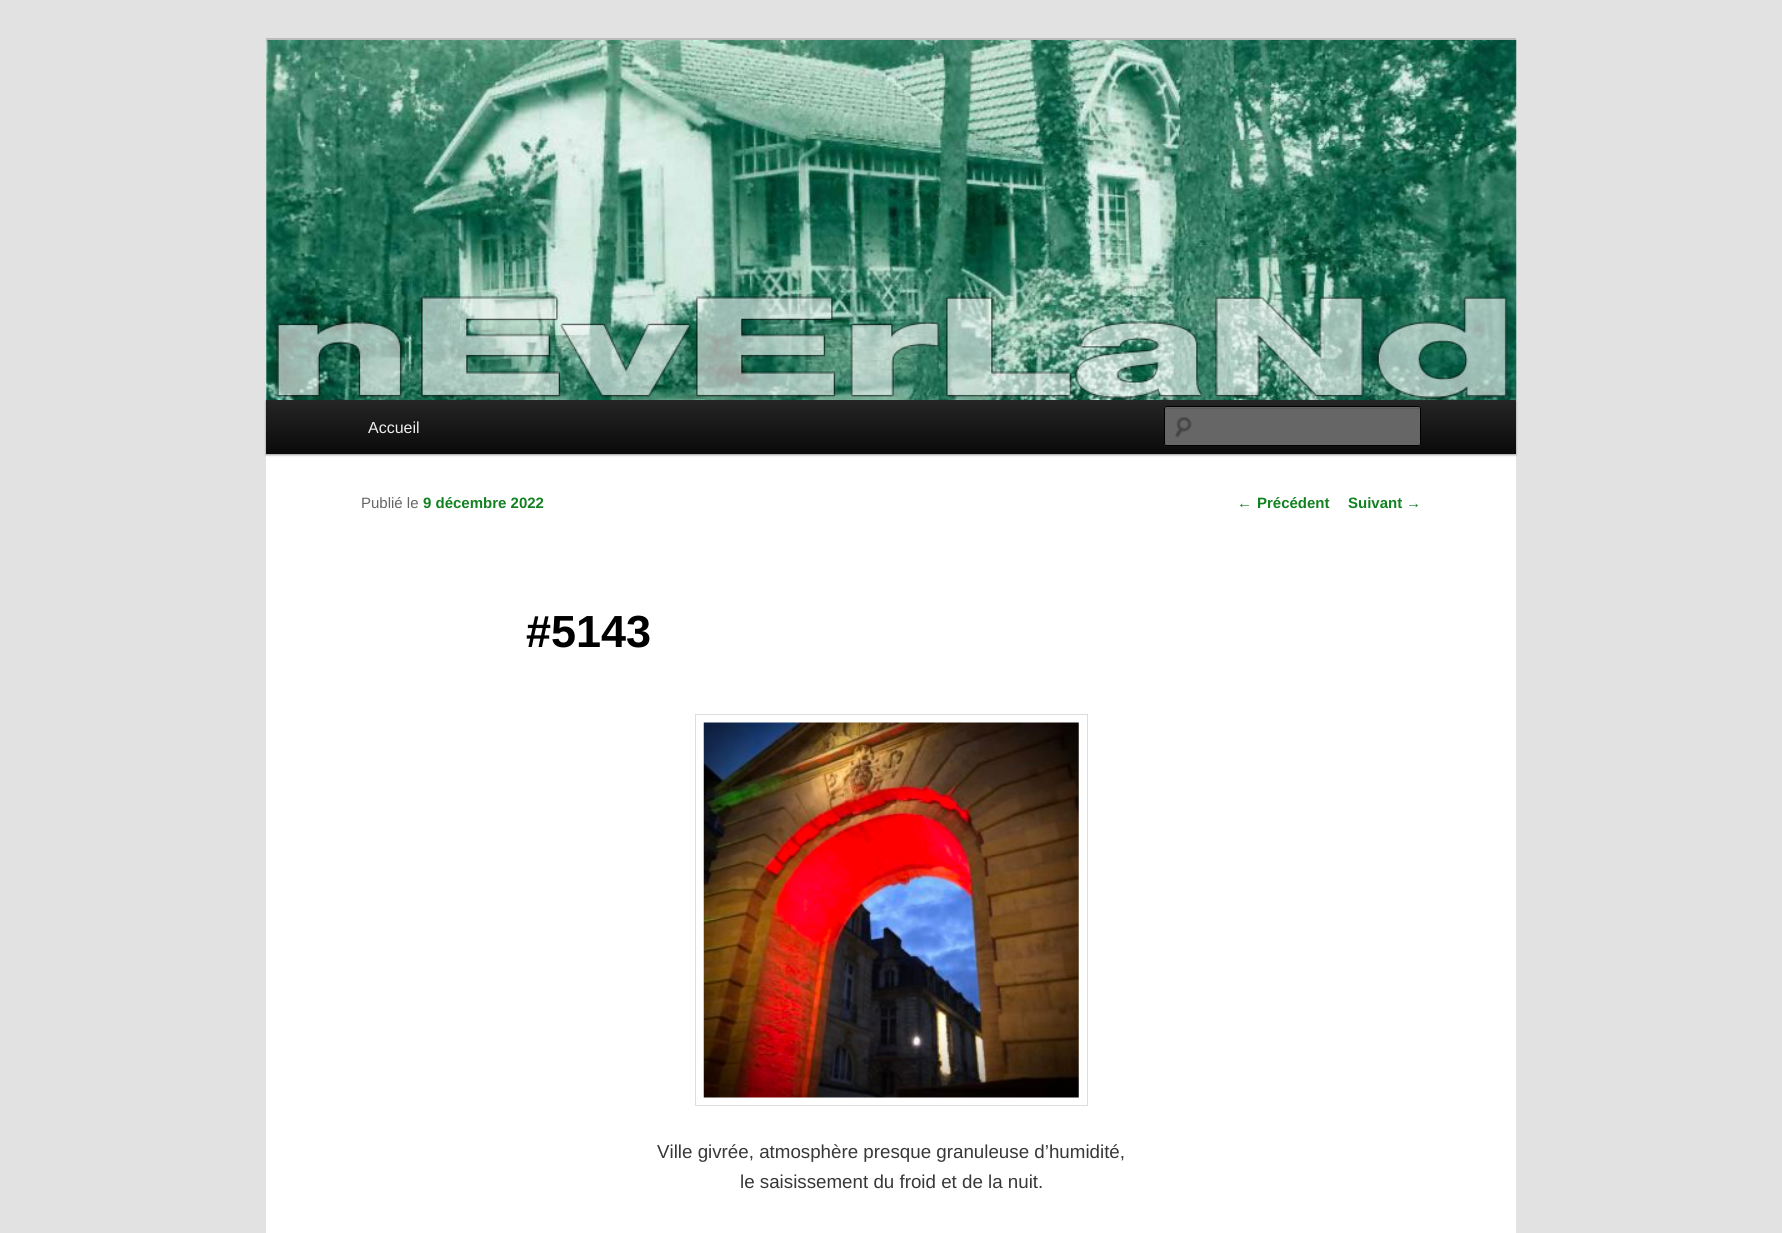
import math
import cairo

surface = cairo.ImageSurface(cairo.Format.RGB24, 1782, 1233)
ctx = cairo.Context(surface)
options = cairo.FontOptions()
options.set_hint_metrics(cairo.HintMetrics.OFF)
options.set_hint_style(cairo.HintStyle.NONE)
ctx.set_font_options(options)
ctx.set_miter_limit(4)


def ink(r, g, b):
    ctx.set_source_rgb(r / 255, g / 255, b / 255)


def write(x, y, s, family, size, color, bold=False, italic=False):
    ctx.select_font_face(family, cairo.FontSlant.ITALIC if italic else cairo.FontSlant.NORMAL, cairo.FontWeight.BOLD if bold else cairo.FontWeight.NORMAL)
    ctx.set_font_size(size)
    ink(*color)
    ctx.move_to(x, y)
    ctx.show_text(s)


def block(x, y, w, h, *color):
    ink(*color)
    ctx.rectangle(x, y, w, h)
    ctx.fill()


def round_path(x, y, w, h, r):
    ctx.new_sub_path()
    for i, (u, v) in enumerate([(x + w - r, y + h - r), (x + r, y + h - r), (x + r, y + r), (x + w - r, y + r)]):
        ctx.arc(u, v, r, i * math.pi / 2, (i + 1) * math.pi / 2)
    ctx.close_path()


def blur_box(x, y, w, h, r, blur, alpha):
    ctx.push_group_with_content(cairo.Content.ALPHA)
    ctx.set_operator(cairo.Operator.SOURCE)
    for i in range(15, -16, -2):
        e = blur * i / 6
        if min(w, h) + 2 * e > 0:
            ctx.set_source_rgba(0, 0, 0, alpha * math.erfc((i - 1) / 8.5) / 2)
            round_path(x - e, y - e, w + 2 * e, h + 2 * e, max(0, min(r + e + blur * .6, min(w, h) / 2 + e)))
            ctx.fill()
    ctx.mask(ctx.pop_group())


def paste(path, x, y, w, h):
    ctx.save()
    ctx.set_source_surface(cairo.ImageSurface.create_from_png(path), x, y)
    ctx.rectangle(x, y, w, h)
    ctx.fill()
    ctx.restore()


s1 = dict(family="Liberation Sans", size=16, color=(238, 238, 238))
s2 = dict(family="Liberation Sans", size=15, color=(102, 102, 102))
s3 = dict(family="Liberation Sans", size=15, color=(18, 129, 32), bold=True)
s4 = dict(family="Liberation Sans", size=45, color=(0, 0, 0), bold=True)
s5 = dict(family="Liberation Sans", size=18.75, color=(55, 55, 55))
s6 = dict(family="Liberation Sans", size=15, color=(18, 129, 32))

ink(226, 226, 226)
ctx.paint()
block(266, 41, 1250, 1192, 255, 255, 255)
block(266, 38, 1250, 3, 187, 187, 187)
ink(0, 0, 0)
blur_box(266, 401, 1250, 54, 0, 1, 0.4)
paste("pic1.png", 266, 40, 1251, 360)
gradient = cairo.LinearGradient(891, 400, 891, 454)
gradient.add_color_stop_rgba(0, 0.145, 0.145, 0.145, 1)
gradient.add_color_stop_rgba(1, 0.039, 0.039, 0.039, 1)
ctx.set_source(gradient)
ctx.rectangle(266, 400, 1250, 54)
ctx.fill()
write(368, 433, "Accueil", **s1)
ink(102, 102, 102)
round_path(1164, 406, 257, 40, 2.5)
ctx.fill()
paste("pic2.png", 1175, 417, 17, 21)
ink(92, 92, 92)
ctx.new_path()
ctx.move_to(1166, 409)
ctx.line_to(1419, 409)
ctx.line_to(1420, 410)
ctx.line_to(1420, 408)
ctx.line_to(1166, 408)
ctx.curve_to(1165, 408, 1165, 409, 1165, 410)
ctx.close_path()
ctx.fill()
round_path(1164.5, 406.5, 256, 39, 2)
ink(0, 0, 0)
ctx.set_line_width(1)
ctx.stroke()
write(361, 508, "Publié le", **s2)
write(423, 508, "9 décembre 2022", **s3)
write(526, 647, "#5143", **s4)
ctx.rectangle(695.5, 714.5, 392, 391)
ink(221, 221, 221)
ctx.stroke()
paste("pic3.png", 703, 722, 376, 376)
write(657, 1158, "Ville givrée, atmosphère presque granuleuse d’humidité,", **s5)
write(740, 1188, "le saisissement du froid et de la nuit.", **s5)
write(1237, 508, "←", **s6)
write(1257, 508, "Précédent", **s3)
write(1348, 508, "Suivant", **s3)
write(1406, 508, "→", **s6)
surface.write_to_png("screenshot.png")
